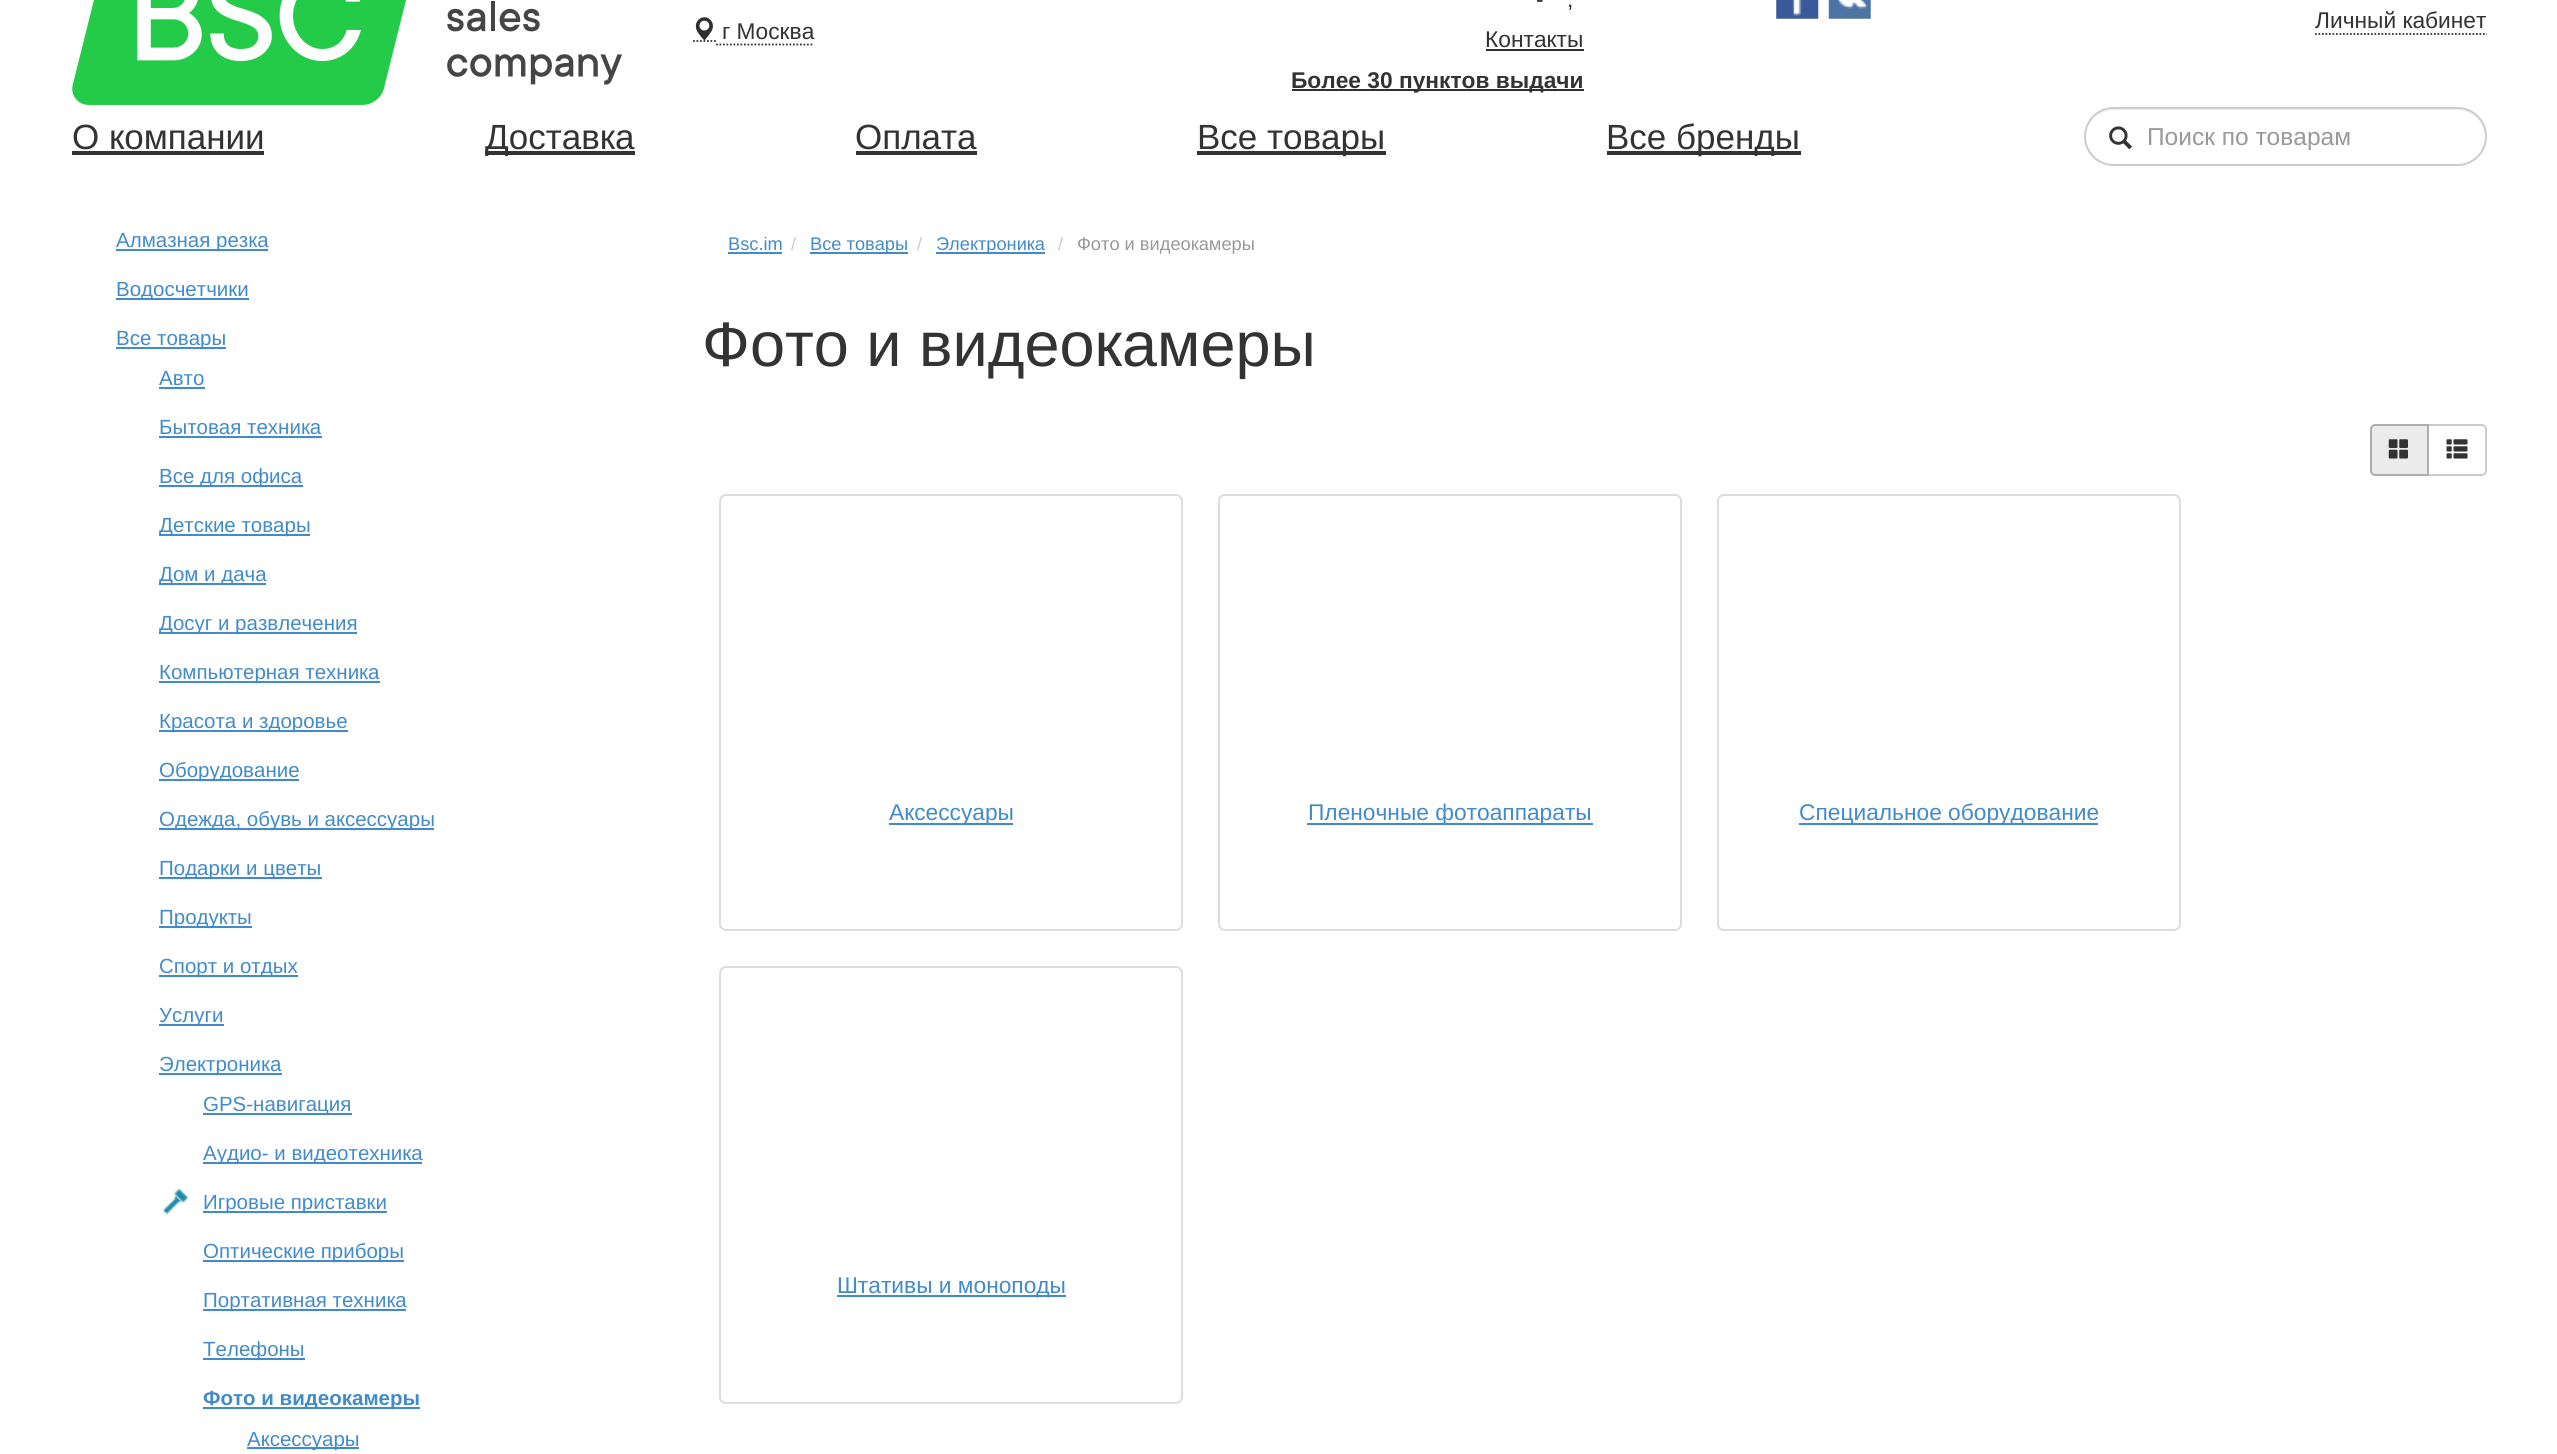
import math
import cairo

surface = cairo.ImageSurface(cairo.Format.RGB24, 2557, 1454)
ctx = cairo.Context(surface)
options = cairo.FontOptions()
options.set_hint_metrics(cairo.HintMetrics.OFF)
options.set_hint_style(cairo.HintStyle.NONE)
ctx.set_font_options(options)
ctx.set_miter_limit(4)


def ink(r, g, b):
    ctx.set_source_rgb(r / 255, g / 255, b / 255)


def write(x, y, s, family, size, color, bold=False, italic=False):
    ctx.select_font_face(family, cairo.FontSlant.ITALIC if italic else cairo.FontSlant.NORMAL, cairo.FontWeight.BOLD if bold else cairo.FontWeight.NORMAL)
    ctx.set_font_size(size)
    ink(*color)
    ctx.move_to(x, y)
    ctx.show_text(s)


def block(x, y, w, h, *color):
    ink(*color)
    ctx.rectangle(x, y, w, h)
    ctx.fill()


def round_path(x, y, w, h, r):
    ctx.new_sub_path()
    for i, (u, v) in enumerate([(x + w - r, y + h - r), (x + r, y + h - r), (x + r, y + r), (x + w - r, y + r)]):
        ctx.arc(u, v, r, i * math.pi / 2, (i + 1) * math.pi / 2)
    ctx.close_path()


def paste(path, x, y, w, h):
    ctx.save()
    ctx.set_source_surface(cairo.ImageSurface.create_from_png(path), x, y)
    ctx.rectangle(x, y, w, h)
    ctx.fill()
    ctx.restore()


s1 = dict(family="Liberation Sans", size=22.75, color=(51, 51, 51))
s2 = dict(family="Liberation Sans", size=22.75, color=(51, 51, 51), bold=True)
s3 = dict(family="Liberation Sans", size=35, color=(51, 51, 51))
s4 = dict(family="Liberation Sans", size=24.5, color=(153, 153, 153))
s5 = dict(family="Liberation Sans", size=20.5, color=(66, 139, 202))
s6 = dict(family="Liberation Sans", size=20.5, color=(66, 139, 202), bold=True)
s7 = dict(family="Liberation Sans", size=18.25, color=(66, 139, 202))
s8 = dict(family="Liberation Sans", size=18.25, color=(204, 204, 204))
s9 = dict(family="Liberation Sans", size=18.25, color=(153, 153, 153))
s10 = dict(family="Liberation Sans", size=63, color=(51, 51, 51))
s11 = dict(family="Liberation Sans", size=22.75, color=(66, 139, 202))

ink(255, 255, 255)
ctx.paint()
paste("pic1.png", 72, 0, 550, 105)
write(1536, 7, "-", **s1)
write(1567, 7, ",", **s1)
write(1485, 47, "Контакты", **s1)
block(1486, 49, 98, 2, 48, 48, 48)
block(1292, 89, 292, 2, 48, 48, 48)
write(1291, 88, "Более 30 пунктов выдачи", **s2)
paste("pic2.png", 1776, 0, 43, 19)
paste("pic3.png", 1828, 0, 43, 19)
ctx.new_path()
ctx.move_to(693, 41)
ctx.line_to(716, 41)
ctx.set_line_width(1.8)
ctx.set_dash([1.75, 1.75])
ctx.stroke()
ctx.new_path()
ctx.move_to(716, 44.5)
ctx.line_to(814, 44.5)
ctx.stroke()
paste("pic4.png", 695, 17, 18, 24)
write(722, 39, "г Москва", **s1)
write(2315, 28, "Личный кабинет", **s1)
ctx.new_path()
ctx.move_to(2315, 34)
ctx.line_to(2487, 34)
ctx.stroke()
write(72, 149, "О компании", **s3)
block(72, 151, 192, 4, 51, 51, 51)
block(485, 151, 150, 4, 51, 51, 51)
write(485, 149, "Доставка", **s3)
write(855, 149, "Оплата", **s3)
block(856, 151, 121, 4, 51, 51, 51)
block(1197, 151, 189, 4, 51, 51, 51)
write(1197, 149, "Все товары", **s3)
block(1607, 151, 194, 4, 51, 51, 51)
write(1606, 149, "Все бренды", **s3)
ink(236, 236, 236)
ctx.new_path()
ctx.move_to(2114, 110)
ctx.line_to(2457, 110)
ctx.curve_to(2472, 110, 2485, 123, 2485, 138)
ctx.curve_to(2485, 122, 2472, 109, 2457, 109)
ctx.line_to(2114, 109)
ctx.curve_to(2099, 109, 2086, 122, 2086, 138)
ctx.curve_to(2086, 123, 2099, 110, 2114, 110)
ctx.close_path()
ctx.fill()
round_path(2085, 108, 401, 57, 28.5)
ink(204, 204, 204)
ctx.set_line_width(2)
ctx.set_dash([])
ctx.stroke()
paste("pic5.png", 2109, 126, 23, 24)
write(2147, 145, "Поиск по товарам", **s4)
block(116, 249, 152, 2, 66, 139, 202)
write(116, 247, "Алмазная резка", **s5)
block(116, 298, 133, 2, 66, 139, 202)
write(116, 296, "Водосчетчики", **s5)
block(116, 347, 110, 2, 66, 139, 202)
write(116, 345, "Все товары", **s5)
write(159, 385, "Авто", **s5)
block(159, 387, 46, 2, 66, 139, 202)
write(159, 434, "Бытовая техника", **s5)
block(159, 436, 163, 2, 66, 139, 202)
block(159, 485, 144, 2, 66, 139, 202)
write(159, 483, "Все для офиса", **s5)
block(159, 534, 151, 2, 66, 139, 202)
write(159, 532, "Детские товары", **s5)
block(159, 583, 107, 2, 66, 139, 202)
write(159, 581, "Дом и дача", **s5)
block(159, 632, 198, 2, 66, 139, 202)
write(159, 630, "Досуг и развлечения", **s5)
block(159, 681, 221, 2, 66, 139, 202)
write(159, 679, "Компьютерная техника", **s5)
block(159, 730, 189, 2, 66, 139, 202)
write(159, 728, "Красота и здоровье", **s5)
block(159, 779, 140, 2, 66, 139, 202)
write(159, 777, "Оборудование", **s5)
block(159, 828, 275, 2, 66, 139, 202)
write(159, 826, "Одежда, обувь и аксессуары", **s5)
block(159, 877, 163, 2, 66, 139, 202)
write(159, 875, "Подарки и цветы", **s5)
block(159, 926, 93, 2, 66, 139, 202)
write(159, 924, "Продукты", **s5)
block(159, 975, 139, 2, 66, 139, 202)
write(159, 973, "Спорт и отдых", **s5)
block(159, 1024, 65, 2, 66, 139, 202)
write(159, 1022, "Услуги", **s5)
block(159, 1073, 123, 2, 66, 139, 202)
write(159, 1071, "Электроника", **s5)
block(203, 1113, 149, 2, 66, 139, 202)
write(203, 1111, "GPS-навигация", **s5)
block(203, 1162, 219, 2, 66, 139, 202)
write(203, 1160, "Аудио- и видеотехника", **s5)
paste("pic6.png", 162, 1189, 26, 26)
block(203, 1211, 184, 2, 66, 139, 202)
write(203, 1209, "Игровые приставки", **s5)
block(203, 1260, 201, 2, 66, 139, 202)
write(203, 1258, "Оптические приборы", **s5)
block(203, 1309, 203, 2, 66, 139, 202)
write(203, 1307, "Портативная техника", **s5)
block(203, 1358, 102, 2, 66, 139, 202)
write(203, 1356, "Телефоны", **s5)
block(203, 1407, 217, 2, 66, 139, 202)
write(203, 1405, "Фото и видеокамеры", **s6)
block(247, 1447, 112, 2, 66, 139, 202)
write(247, 1446, "Аксессуары", **s5)
write(728, 250, "Bsc.im", **s7)
block(728, 252, 54, 2, 66, 139, 202)
write(791, 250, "/", **s8)
block(810, 252, 98, 2, 66, 139, 202)
write(810, 250, "Все товары", **s7)
write(917, 250, "/", **s8)
block(936, 252, 109, 2, 66, 139, 202)
write(936, 250, "Электроника", **s7)
write(1058, 250, "/", **s8)
write(1077, 250, "Фото и видеокамеры", **s9)
write(702, 366, "Фото и видеокамеры", **s10)
ctx.new_path()
ctx.move_to(2428, 425)
ctx.line_to(2482, 425)
ctx.curve_to(2484, 425, 2486, 427, 2486, 429)
ctx.line_to(2486, 471)
ctx.curve_to(2486, 473, 2484, 475, 2482, 475)
ctx.line_to(2428, 475)
ctx.close_path()
ink(204, 204, 204)
ctx.stroke()
ink(235, 235, 235)
ctx.new_path()
ctx.move_to(2375, 425)
ctx.line_to(2428, 425)
ctx.line_to(2428, 475)
ctx.line_to(2375, 475)
ctx.curve_to(2373, 475, 2371, 473, 2371, 471)
ctx.line_to(2371, 429)
ctx.curve_to(2371, 427, 2373, 425, 2375, 425)
ctx.close_path()
ctx.fill_preserve()
ink(173, 173, 173)
ctx.stroke()
paste("pic7.png", 2388, 439, 20, 20)
paste("pic8.png", 2446, 439, 22, 20)
round_path(720, 495, 462, 435, 6)
ink(221, 221, 221)
ctx.stroke()
block(889, 823, 124, 2, 66, 139, 202)
write(889, 820, "Аксессуары", **s11)
round_path(1219, 495, 462, 435, 6)
ink(221, 221, 221)
ctx.stroke()
block(1307, 823, 286, 2, 66, 139, 202)
write(1308, 820, "Пленочные фотоаппараты", **s11)
round_path(1718, 495, 462, 435, 6)
ink(221, 221, 221)
ctx.stroke()
block(1799, 823, 299, 2, 66, 139, 202)
write(1799, 820, "Специальное оборудование", **s11)
round_path(720, 967, 462, 436, 6)
ink(221, 221, 221)
ctx.stroke()
block(837, 1295, 229, 2, 66, 139, 202)
write(837, 1293, "Штативы и моноподы", **s11)
surface.write_to_png("screenshot.png")
